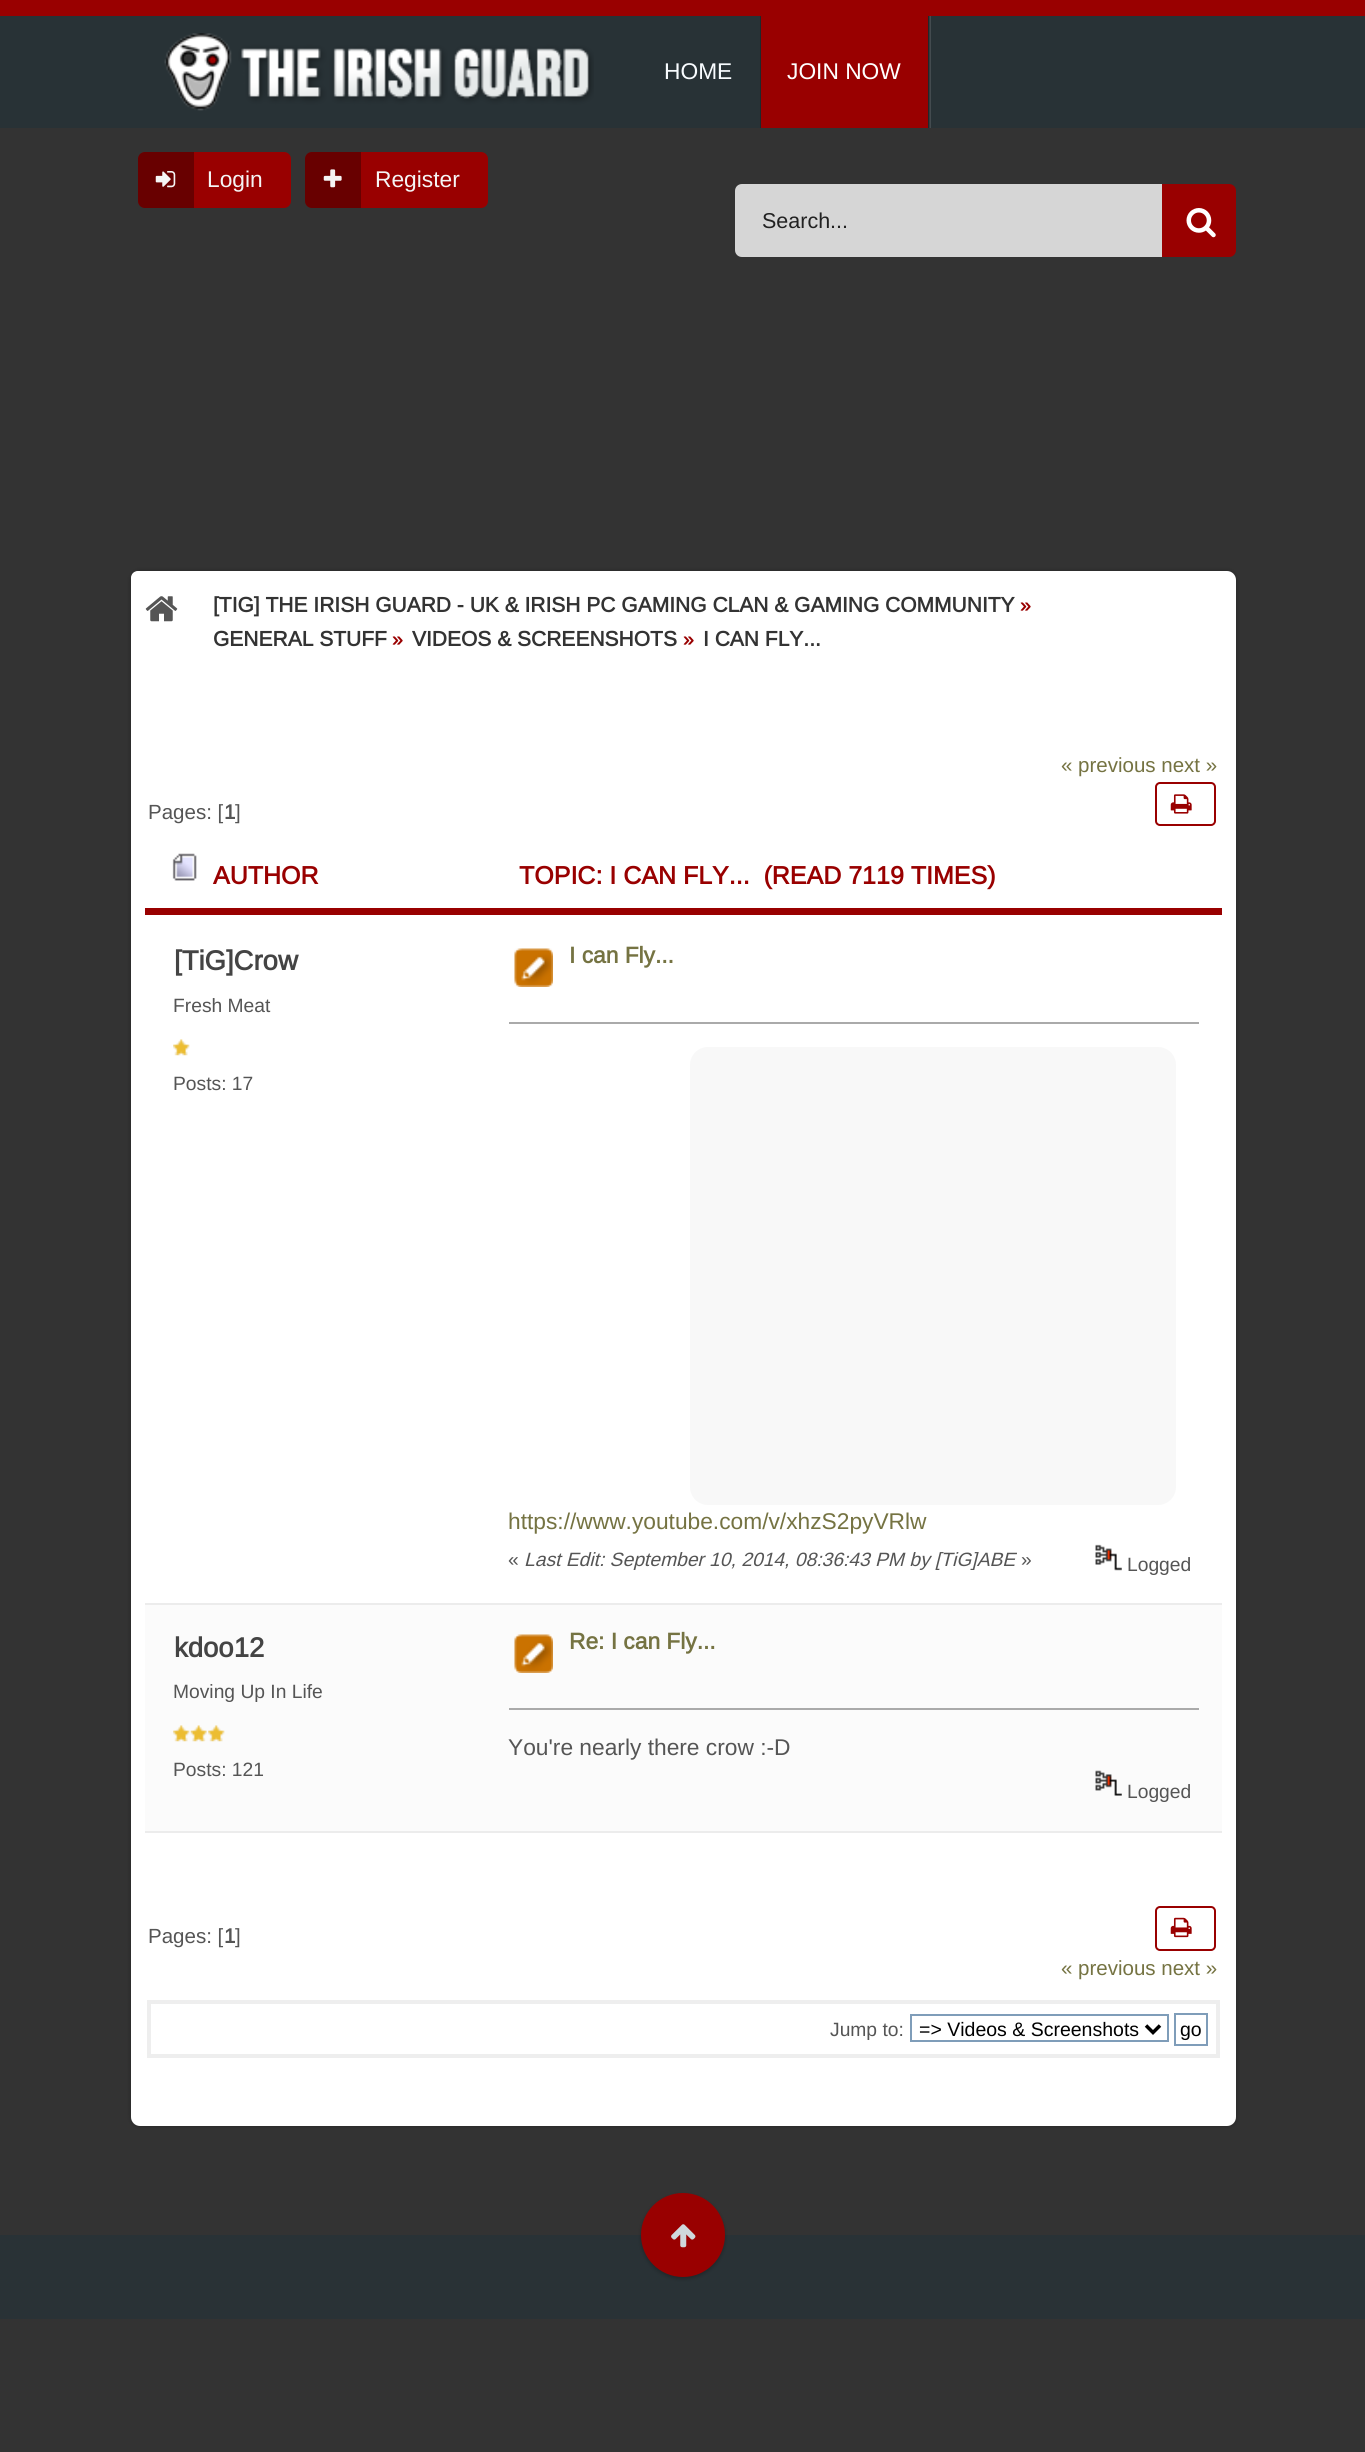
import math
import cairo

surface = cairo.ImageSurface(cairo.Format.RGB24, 1365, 2452)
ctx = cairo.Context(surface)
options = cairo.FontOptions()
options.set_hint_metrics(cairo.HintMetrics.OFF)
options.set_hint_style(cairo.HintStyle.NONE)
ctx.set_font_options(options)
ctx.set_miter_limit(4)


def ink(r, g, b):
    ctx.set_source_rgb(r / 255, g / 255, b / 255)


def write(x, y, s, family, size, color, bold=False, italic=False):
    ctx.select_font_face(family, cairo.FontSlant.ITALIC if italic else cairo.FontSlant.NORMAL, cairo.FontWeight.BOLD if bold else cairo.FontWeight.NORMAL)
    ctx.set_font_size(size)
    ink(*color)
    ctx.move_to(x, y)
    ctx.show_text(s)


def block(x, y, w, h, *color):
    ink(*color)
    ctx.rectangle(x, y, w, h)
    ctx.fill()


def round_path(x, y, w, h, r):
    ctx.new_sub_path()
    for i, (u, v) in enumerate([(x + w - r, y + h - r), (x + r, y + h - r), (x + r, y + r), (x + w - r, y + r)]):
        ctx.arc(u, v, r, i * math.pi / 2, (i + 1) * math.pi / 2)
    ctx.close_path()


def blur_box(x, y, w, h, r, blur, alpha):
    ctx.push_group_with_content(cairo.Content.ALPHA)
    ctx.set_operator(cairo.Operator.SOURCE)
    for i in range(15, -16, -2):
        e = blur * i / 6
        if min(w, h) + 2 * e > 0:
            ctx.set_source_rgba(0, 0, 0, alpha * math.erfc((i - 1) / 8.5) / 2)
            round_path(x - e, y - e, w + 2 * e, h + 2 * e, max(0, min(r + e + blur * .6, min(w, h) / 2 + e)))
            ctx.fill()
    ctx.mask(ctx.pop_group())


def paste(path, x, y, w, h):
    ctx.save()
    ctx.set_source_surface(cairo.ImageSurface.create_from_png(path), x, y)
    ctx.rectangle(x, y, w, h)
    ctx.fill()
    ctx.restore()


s1 = dict(family="Arimo", size=22.75, color=(248, 252, 255))
s2 = dict(family="Arimo", size=22.75, color=(255, 255, 255))
s3 = dict(family="Arimo", size=22.75, color=(245, 245, 245))
s4 = dict(family="Liberation Sans", size=21.5, color=(33, 33, 33))
s5 = dict(family="Arimo", size=21, color=(51, 51, 51), bold=True)
s6 = dict(family="Arimo", size=19.5, color=(153, 0, 0), bold=True)
s7 = dict(family="Arimo", size=20.5, color=(117, 115, 66))
s8 = dict(family="Arimo", size=20.5, color=(85, 85, 85))
s9 = dict(family="Arimo", size=20.5, color=(85, 85, 85), bold=True)
s10 = dict(family="Arimo", size=25, color=(153, 0, 0), bold=True)
s11 = dict(family="Arimo", size=27.5, color=(68, 68, 68), bold=True)
s12 = dict(family="Arimo", size=19.25, color=(85, 85, 85))
s13 = dict(family="Arimo", size=22.75, color=(117, 115, 66), bold=True)
s14 = dict(family="Arimo", size=22.75, color=(117, 115, 66))
s15 = dict(family="Arimo", size=19.25, color=(85, 85, 85), italic=True)
s16 = dict(family="Arimo", size=22.75, color=(85, 85, 85))
s17 = dict(family="Liberation Sans", size=19.5, color=(0, 0, 0))

ink(51, 51, 51)
ctx.paint()
ctx.set_source_rgba(0.149, 0.196, 0.22, 0.78)
ctx.rectangle(0, 16, 1365, 112)
ctx.fill()
block(0, 0, 1365, 16, 153, 0, 0)
paste("pic1.png", 164, 33, 430, 78)
ctx.set_source_rgba(0, 0, 0, 0.2)
ctx.rectangle(760, 16, 1, 112)
ctx.fill()
write(664, 79, "HOME", **s1)
ink(67, 75, 79)
ctx.new_path()
ctx.move_to(763, 128)
ctx.line_to(931, 128)
ctx.line_to(931, 16)
ctx.line_to(929, 16)
ctx.line_to(929, 128)
ctx.close_path()
ctx.fill()
ctx.set_source_rgba(0, 0, 0, 0.2)
ctx.rectangle(928, 16, 2, 112)
ctx.fill()
block(761, 16, 167, 112, 153, 0, 0)
write(787, 79, "JOIN NOW", **s2)
ink(153, 0, 0)
round_path(138, 152, 153, 56, 7)
ctx.fill()
ctx.set_source_rgba(0, 0, 0, 0.32)
ctx.new_path()
ctx.move_to(145, 152)
ctx.line_to(194, 152)
ctx.line_to(194, 208)
ctx.line_to(145, 208)
ctx.curve_to(141, 208, 138, 205, 138, 201)
ctx.line_to(138, 159)
ctx.curve_to(138, 155, 141, 152, 145, 152)
ctx.close_path()
ctx.fill()
paste("pic2.png", 155, 171, 21, 17)
write(207, 187, "Login", **s3)
ink(153, 0, 0)
round_path(305, 152, 183, 56, 7)
ctx.fill()
ctx.set_source_rgba(0, 0, 0, 0.32)
ctx.new_path()
ctx.move_to(312, 152)
ctx.line_to(361, 152)
ctx.line_to(361, 208)
ctx.line_to(312, 208)
ctx.curve_to(308, 208, 305, 205, 305, 201)
ctx.line_to(305, 159)
ctx.curve_to(305, 155, 308, 152, 312, 152)
ctx.close_path()
ctx.fill()
paste("pic3.png", 323, 169, 19, 19)
write(375, 187, "Register", **s3)
ink(153, 0, 0)
ctx.new_path()
ctx.move_to(1162, 184)
ctx.line_to(1229, 184)
ctx.curve_to(1233, 184, 1236, 187, 1236, 191)
ctx.line_to(1236, 250)
ctx.curve_to(1236, 254, 1233, 257, 1229, 257)
ctx.line_to(1162, 257)
ctx.close_path()
ctx.fill()
ctx.set_source_rgba(1, 1, 1, 0.8)
ctx.new_path()
ctx.move_to(742, 184)
ctx.line_to(1162, 184)
ctx.line_to(1162, 257)
ctx.line_to(742, 257)
ctx.curve_to(738, 257, 735, 254, 735, 250)
ctx.line_to(735, 191)
ctx.curve_to(735, 187, 738, 184, 742, 184)
ctx.close_path()
ctx.fill()
write(762, 228, "Search...", **s4)
paste("pic4.png", 1186, 208, 30, 30)
ink(0, 0, 0)
blur_box(131, 571, 1105, 1555, 9, 2.5, 0.3)
ink(255, 255, 255)
round_path(131, 571, 1105, 1555, 9)
ctx.fill()
ctx.new_path()
ctx.move_to(138, 571)
ctx.line_to(193, 571)
ctx.line_to(193, 641)
ctx.line_to(131, 641)
ctx.line_to(131, 578)
ctx.curve_to(131, 574, 134, 571, 138, 571)
ctx.close_path()
ctx.fill()
paste("pic5.png", 145, 596, 33, 26)
write(213, 612, "[TIG] THE IRISH GUARD - UK & IRISH PC GAMING CLAN & GAMING COMMUNITY", **s5)
write(1020, 612, "»", **s6)
write(213, 646, "GENERAL STUFF", **s5)
write(392, 646, "»", **s6)
write(412, 646, "VIDEOS & SCREENSHOTS", **s5)
write(683, 646, "»", **s6)
write(703, 646, "I CAN FLY...", **s5)
write(1061, 772, "« previous next »", **s7)
write(148, 819, "Pages: [", **s8)
write(224, 819, "1", **s9)
write(235, 819, "]", **s8)
round_path(1156, 783, 59, 42, 4)
ink(153, 0, 0)
ctx.stroke()
paste("pic6.png", 1170, 794, 22, 20)
block(145, 908, 1077, 7, 153, 0, 0)
paste("pic7.png", 172, 853, 25, 28)
write(213, 884, "AUTHOR", **s10)
write(519, 884, "TOPIC: I CAN FLY...  (READ 7119 TIMES)", **s10)
block(145, 1603, 1077, 2, 236, 236, 236)
write(174, 970, "[TiG]Crow", **s11)
write(173, 1012, "Fresh Meat", **s12)
paste("pic8.png", 173, 1039, 17, 17)
write(173, 1090, "Posts: 17", **s12)
paste("pic9.png", 514, 948, 39, 39)
write(569, 963, "I can Fly...", **s13)
block(509, 1022, 690, 2, 170, 170, 170)
ink(248, 248, 248)
round_path(690, 1047, 486, 458, 18)
ctx.fill()
write(508, 1529, "https://www.youtube.com/v/xhzS2pyVRlw", **s14)
write(508, 1566, "«", **s12)
write(524, 1566, "Last Edit: September 10, 2014, 08:36:43 PM by [TiG]ABE", **s15)
write(1021, 1566, "»", **s12)
paste("pic10.png", 1095, 1544, 27, 27)
write(1127, 1571, "Logged", **s12)
block(145, 1605, 1077, 226, 251, 251, 251)
block(145, 1831, 1077, 2, 236, 236, 236)
write(174, 1657, "kdoo12", **s11)
write(173, 1698, "Moving Up In Life", **s12)
paste("pic11.png", 173, 1725, 17, 17)
paste("pic12.png", 190, 1725, 17, 17)
paste("pic13.png", 208, 1725, 17, 17)
write(173, 1776, "Posts: 121", **s12)
paste("pic14.png", 514, 1634, 39, 39)
write(569, 1649, "Re: I can Fly...", **s13)
block(509, 1708, 690, 2, 170, 170, 170)
write(508, 1755, "You're nearly there crow :-D", **s16)
paste("pic15.png", 1095, 1770, 27, 26)
write(1127, 1798, "Logged", **s12)
write(148, 1943, "Pages: [", **s8)
write(224, 1943, "1", **s9)
write(235, 1943, "]", **s8)
round_path(1156, 1907, 59, 43, 4)
ink(153, 0, 0)
ctx.stroke()
paste("pic16.png", 1170, 1917, 22, 21)
write(1061, 1975, "« previous next »", **s7)
ctx.rectangle(149, 2002, 1069, 54)
ink(238, 238, 238)
ctx.set_line_width(4)
ctx.stroke()
write(830, 2036, "Jump to:", **s12)
ctx.rectangle(911, 2015, 257, 26)
ink(127, 157, 185)
ctx.set_line_width(2)
ctx.stroke()
ctx.new_path()
ctx.move_to(1146, 2025.5)
ctx.line_to(1153, 2032.5)
ctx.line_to(1160, 2025.5)
ink(0, 0, 0)
ctx.set_line_width(3.5)
ctx.stroke()
write(919, 2036, "=> Videos & Screenshots", **s17)
ctx.rectangle(1175, 2014, 32, 31)
ink(127, 157, 185)
ctx.set_line_width(2)
ctx.stroke()
write(1180, 2036, "go", **s17)
ctx.set_source_rgba(0.149, 0.196, 0.22, 0.74)
ctx.rectangle(0, 2235, 1365, 84)
ctx.fill()
ink(0, 0, 0)
blur_box(641, 2195, 84, 84, 42, 2, 0.24)
ink(153, 0, 0)
ctx.arc(683, 2235, 42, 0, 2 * math.pi)
ctx.fill()
paste("pic17.png", 671, 2224, 25, 24)
surface.write_to_png("screenshot.png")
